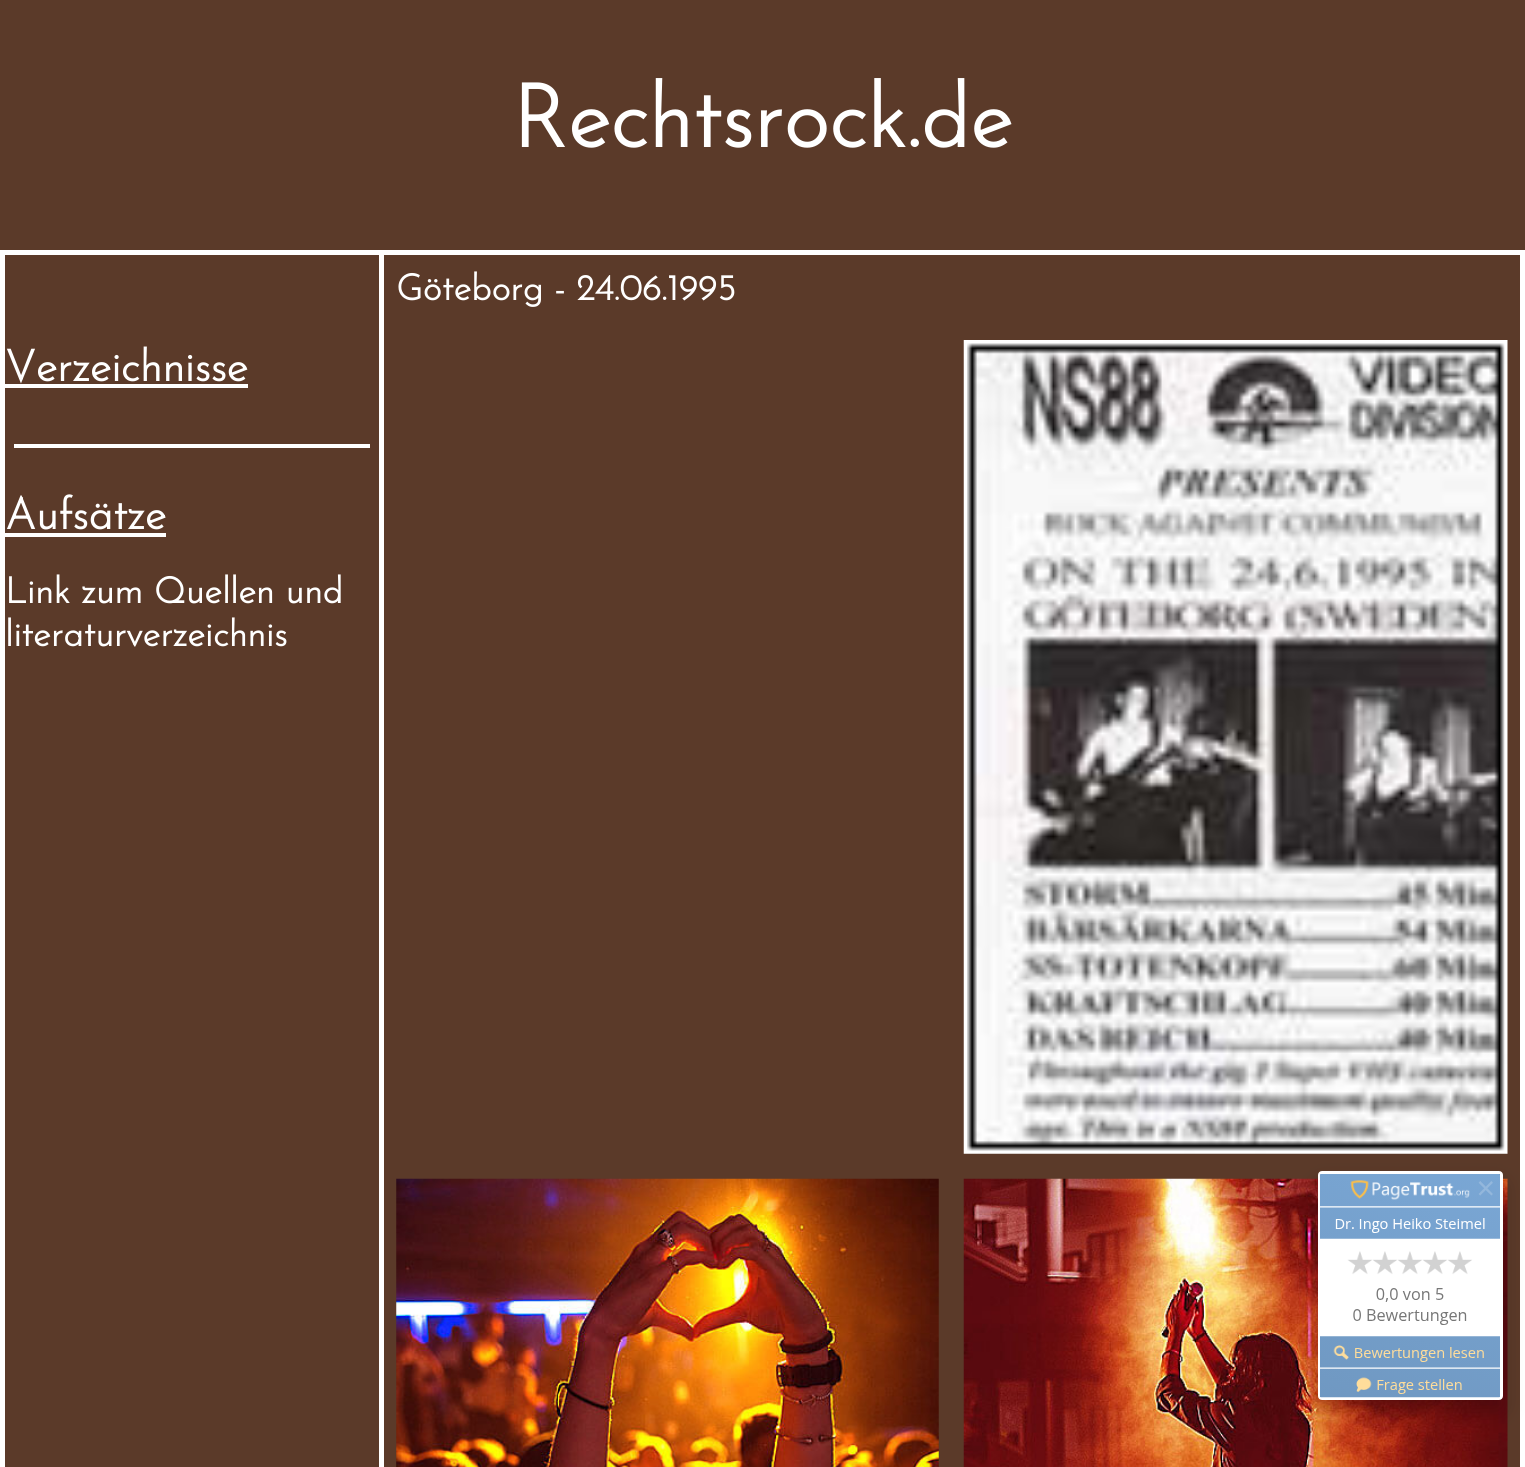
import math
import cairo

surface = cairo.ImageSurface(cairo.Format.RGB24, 1525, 1467)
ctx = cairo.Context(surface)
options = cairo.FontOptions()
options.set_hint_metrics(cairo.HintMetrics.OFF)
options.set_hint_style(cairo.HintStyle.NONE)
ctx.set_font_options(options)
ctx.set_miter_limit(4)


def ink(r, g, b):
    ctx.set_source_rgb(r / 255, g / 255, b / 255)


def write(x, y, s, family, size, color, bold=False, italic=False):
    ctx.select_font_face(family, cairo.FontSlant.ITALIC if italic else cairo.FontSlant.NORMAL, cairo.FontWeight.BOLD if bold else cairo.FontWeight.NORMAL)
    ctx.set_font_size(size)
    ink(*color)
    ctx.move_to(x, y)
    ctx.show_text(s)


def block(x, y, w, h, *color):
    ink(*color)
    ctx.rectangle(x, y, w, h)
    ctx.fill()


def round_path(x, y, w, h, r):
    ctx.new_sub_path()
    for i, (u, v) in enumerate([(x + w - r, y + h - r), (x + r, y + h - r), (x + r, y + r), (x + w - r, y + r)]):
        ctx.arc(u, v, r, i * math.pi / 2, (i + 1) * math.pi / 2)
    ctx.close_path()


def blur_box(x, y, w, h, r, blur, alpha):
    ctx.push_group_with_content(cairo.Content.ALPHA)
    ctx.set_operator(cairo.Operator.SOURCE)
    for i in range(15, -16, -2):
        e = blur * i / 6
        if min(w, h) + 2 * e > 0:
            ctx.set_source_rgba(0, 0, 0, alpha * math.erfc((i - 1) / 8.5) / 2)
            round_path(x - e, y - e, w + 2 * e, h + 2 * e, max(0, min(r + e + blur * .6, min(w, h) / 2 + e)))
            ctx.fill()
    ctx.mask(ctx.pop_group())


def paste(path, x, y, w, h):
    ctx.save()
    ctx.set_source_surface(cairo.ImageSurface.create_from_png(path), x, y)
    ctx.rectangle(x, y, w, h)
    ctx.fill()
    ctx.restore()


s1 = dict(family="Josefin Sans", size=87.5, color=(255, 255, 255), bold=True)
s2 = dict(family="Josefin Sans", size=36.25, color=(255, 255, 255), bold=True)
s3 = dict(family="Josefin Sans", size=43.75, color=(255, 255, 255), bold=True)

ink(91, 58, 41)
ctx.paint()
write(512, 147, "Rechtsrock.de", **s1)
ctx.rectangle(2.5, 252.5, 1520, 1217)
ctx.set_line_width(5)
ctx.stroke()
write(396, 300, "Göteborg - 24.06.1995", **s2)
paste("pic1.png", 963, 340, 545, 814)
paste("pic2.png", 396, 1178, 543, 289)
paste("pic3.png", 963, 1178, 545, 289)
block(379, 255, 5, 1212, 255, 255, 255)
write(5, 381, "Verzeichnisse", **s3)
block(5, 384, 243, 4, 255, 255, 255)
block(14, 444, 356, 4, 255, 255, 255)
write(5, 529, "Aufsätze", **s3)
block(5, 533, 161, 4, 255, 255, 255)
write(5, 603, "Link zum Quellen und", **s2)
write(5, 646, "literaturverzeichnis", **s2)
ink(0, 0, 0)
blur_box(1318, 1183, 185, 228, 4, 11, 0.2)
round_path(1319.5, 1172.5, 182, 226, 2.5)
ink(255, 255, 255)
ctx.set_line_width(3)
ctx.stroke()
paste("pic4.png", 1320, 1174, 180, 224)
surface.write_to_png("screenshot.png")
